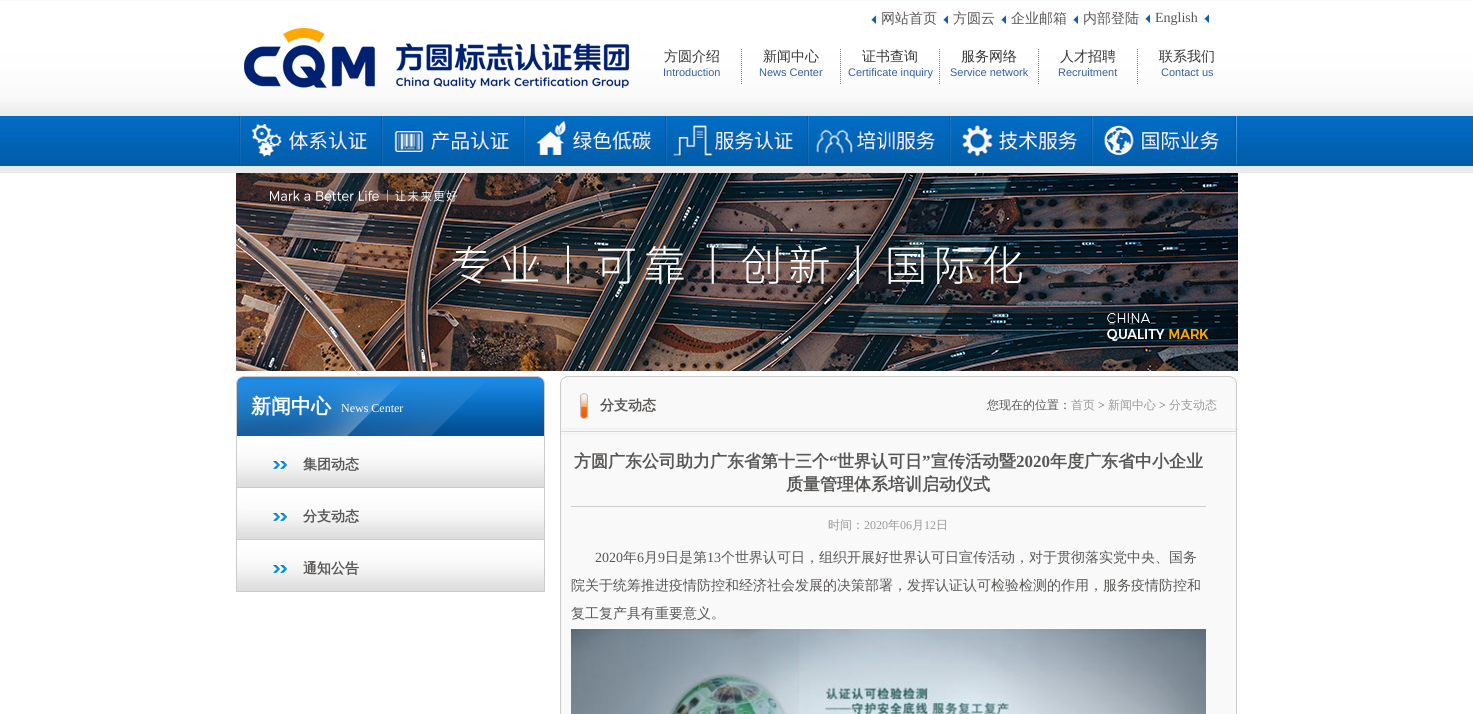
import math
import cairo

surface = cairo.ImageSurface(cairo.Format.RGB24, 1473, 714)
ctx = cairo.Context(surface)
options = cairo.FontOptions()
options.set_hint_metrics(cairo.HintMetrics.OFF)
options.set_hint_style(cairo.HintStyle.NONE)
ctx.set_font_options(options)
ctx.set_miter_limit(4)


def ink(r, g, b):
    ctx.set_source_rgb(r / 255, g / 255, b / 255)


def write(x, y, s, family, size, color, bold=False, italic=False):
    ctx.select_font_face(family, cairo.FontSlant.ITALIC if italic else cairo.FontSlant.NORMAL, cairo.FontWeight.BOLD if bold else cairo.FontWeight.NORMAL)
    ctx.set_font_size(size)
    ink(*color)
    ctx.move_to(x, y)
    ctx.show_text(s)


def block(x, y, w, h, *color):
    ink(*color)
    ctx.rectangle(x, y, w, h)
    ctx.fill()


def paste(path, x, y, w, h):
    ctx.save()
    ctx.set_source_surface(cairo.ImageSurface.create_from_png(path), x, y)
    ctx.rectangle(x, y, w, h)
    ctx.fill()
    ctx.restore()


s1 = dict(family="WenQuanYi Zen Hei Medium", size=14, color=(89, 87, 86))
s2 = dict(family="Liberation Serif", size=14, color=(89, 87, 86))
s3 = dict(family="WenQuanYi Zen Hei Medium", size=14, color=(55, 53, 53))
s4 = dict(family="Liberation Sans", size=11, color=(54, 96, 172))
s5 = dict(family="WenQuanYi Zen Hei", size=20, color=(255, 255, 255), bold=True)
s6 = dict(family="Liberation Serif", size=12, color=(255, 255, 255))
s7 = dict(family="WenQuanYi Zen Hei", size=14, color=(89, 87, 86), bold=True)
s8 = dict(family="WenQuanYi Zen Hei Medium", size=12, color=(89, 87, 86))
s9 = dict(family="WenQuanYi Zen Hei Medium", size=12, color=(153, 153, 153))
s10 = dict(family="Liberation Serif", size=12, color=(89, 87, 86))
s11 = dict(family="WenQuanYi Zen Hei", size=17, color=(89, 87, 86), bold=True)
s12 = dict(family="Liberation Serif", size=17, color=(89, 87, 86), bold=True)
s13 = dict(family="Liberation Serif", size=12, color=(153, 153, 153))

ink(255, 255, 255)
ctx.paint()
paste("pic1.png", 0, 0, 1473, 116)
paste("pic2.png", 244, 28, 385, 60)
paste("pic3.png", 871, 15, 5, 9)
write(881, 23, "网站首页", **s1)
paste("pic3.png", 943, 15, 5, 9)
write(953, 23, "方圆云", **s1)
paste("pic3.png", 1001, 15, 5, 9)
write(1011, 23, "企业邮箱", **s1)
paste("pic3.png", 1073, 15, 5, 9)
write(1083, 23, "内部登陆", **s1)
paste("pic3.png", 1145, 14, 5, 9)
write(1155, 22, "English", **s2)
paste("pic3.png", 1204, 14, 5, 9)
paste("pic4.png", 741, 49, 1, 35)
write(664, 61, "方圆介绍", **s3)
write(663, 76, "Introduction", **s4)
paste("pic4.png", 840, 49, 1, 35)
write(763, 61, "新闻中心", **s3)
write(759, 76, "News Center", **s4)
paste("pic4.png", 939, 49, 1, 35)
write(862, 61, "证书查询", **s3)
write(848, 76, "Certificate inquiry", **s4)
paste("pic4.png", 1038, 49, 1, 35)
write(961, 61, "服务网络", **s3)
write(950, 76, "Service network", **s4)
paste("pic4.png", 1137, 49, 1, 35)
write(1060, 61, "人才招聘", **s3)
write(1058, 76, "Recruitment", **s4)
write(1159, 61, "联系我们", **s3)
write(1161, 76, "Contact us", **s4)
paste("pic5.png", 0, 116, 1473, 50)
paste("pic6.png", 1235, 116, 2, 49)
paste("pic7.png", 239, 116, 2, 49)
paste("pic8.png", 241, 116, 127, 49)
paste("pic7.png", 381, 116, 2, 49)
paste("pic9.png", 383, 116, 128, 49)
paste("pic10.png", 523, 116, 2, 49)
paste("pic11.png", 525, 116, 127, 49)
paste("pic7.png", 665, 116, 2, 49)
paste("pic12.png", 667, 116, 128, 49)
paste("pic10.png", 807, 116, 2, 49)
paste("pic13.png", 809, 116, 128, 49)
paste("pic7.png", 949, 116, 2, 49)
paste("pic14.png", 951, 116, 127, 49)
paste("pic10.png", 1091, 116, 2, 49)
paste("pic15.png", 1093, 116, 127, 49)
block(0, 166, 1473, 7, 234, 234, 234)
paste("pic16.png", 236, 173, 1002, 198)
paste("pic17.png", 236, 376, 309, 60)
write(251, 413, "新闻中心", **s5)
write(341, 412, "News Center", **s6)
paste("pic18.png", 236, 436, 309, 52)
paste("pic19.png", 273, 461, 14, 8)
write(303, 469, "集团动态", **s7)
paste("pic18.png", 236, 488, 309, 52)
paste("pic19.png", 273, 513, 14, 8)
write(303, 521, "分支动态", **s7)
paste("pic18.png", 236, 540, 309, 52)
paste("pic19.png", 273, 565, 14, 8)
write(303, 573, "通知公告", **s7)
paste("pic20.png", 560, 376, 677, 59)
paste("pic21.png", 580, 393, 8, 26)
write(600, 410, "分支动态", **s7)
write(987, 409, "您现在的位置：", **s8)
write(1071, 409, "首页", **s9)
write(1098, 409, ">", **s10)
write(1108, 409, "新闻中心", **s9)
write(1159, 409, ">", **s10)
write(1169, 409, "分支动态", **s9)
block(561, 435, 675, 279, 249, 249, 249)
block(1236, 435, 1, 279, 204, 203, 203)
block(560, 435, 1, 279, 204, 203, 203)
block(571, 506, 635, 1, 204, 204, 204)
write(574, 467, "方圆广东公司助力广东省第十三个", **s11)
write(829, 467, "“", **s12)
write(837, 467, "世界认可日", **s11)
write(922, 467, "”", **s12)
write(931, 467, "宣传活动暨", **s11)
write(1016, 467, "2020", **s12)
write(1050, 467, "年度广东省中小企业", **s11)
write(786, 490, "质量管理体系培训启动仪式", **s11)
write(828, 529, "时间：", **s9)
write(864, 529, "2020", **s13)
write(888, 529, "年", **s9)
write(900, 529, "06", **s13)
write(912, 529, "月", **s9)
write(924, 529, "12", **s13)
write(936, 529, "日", **s9)
write(595, 562, "2020", **s2)
write(623, 562, "年", **s1)
write(637, 562, "6", **s2)
write(644, 562, "月", **s1)
write(658, 562, "9", **s2)
write(665, 562, "日是第", **s1)
write(707, 562, "13", **s2)
write(721, 562, "个世界认可日，组织开展好世界认可日宣传活动，对于贯彻落实党中央、国务", **s1)
write(571, 590, "院关于统筹推进疫情防控和经济社会发展的决策部署，发挥认证认可检验检测的作用，服务疫情防控和", **s1)
write(571, 618, "复工复产具有重要意义。", **s1)
paste("pic22.png", 571, 628, 635, 86)
surface.write_to_png("screenshot.png")
